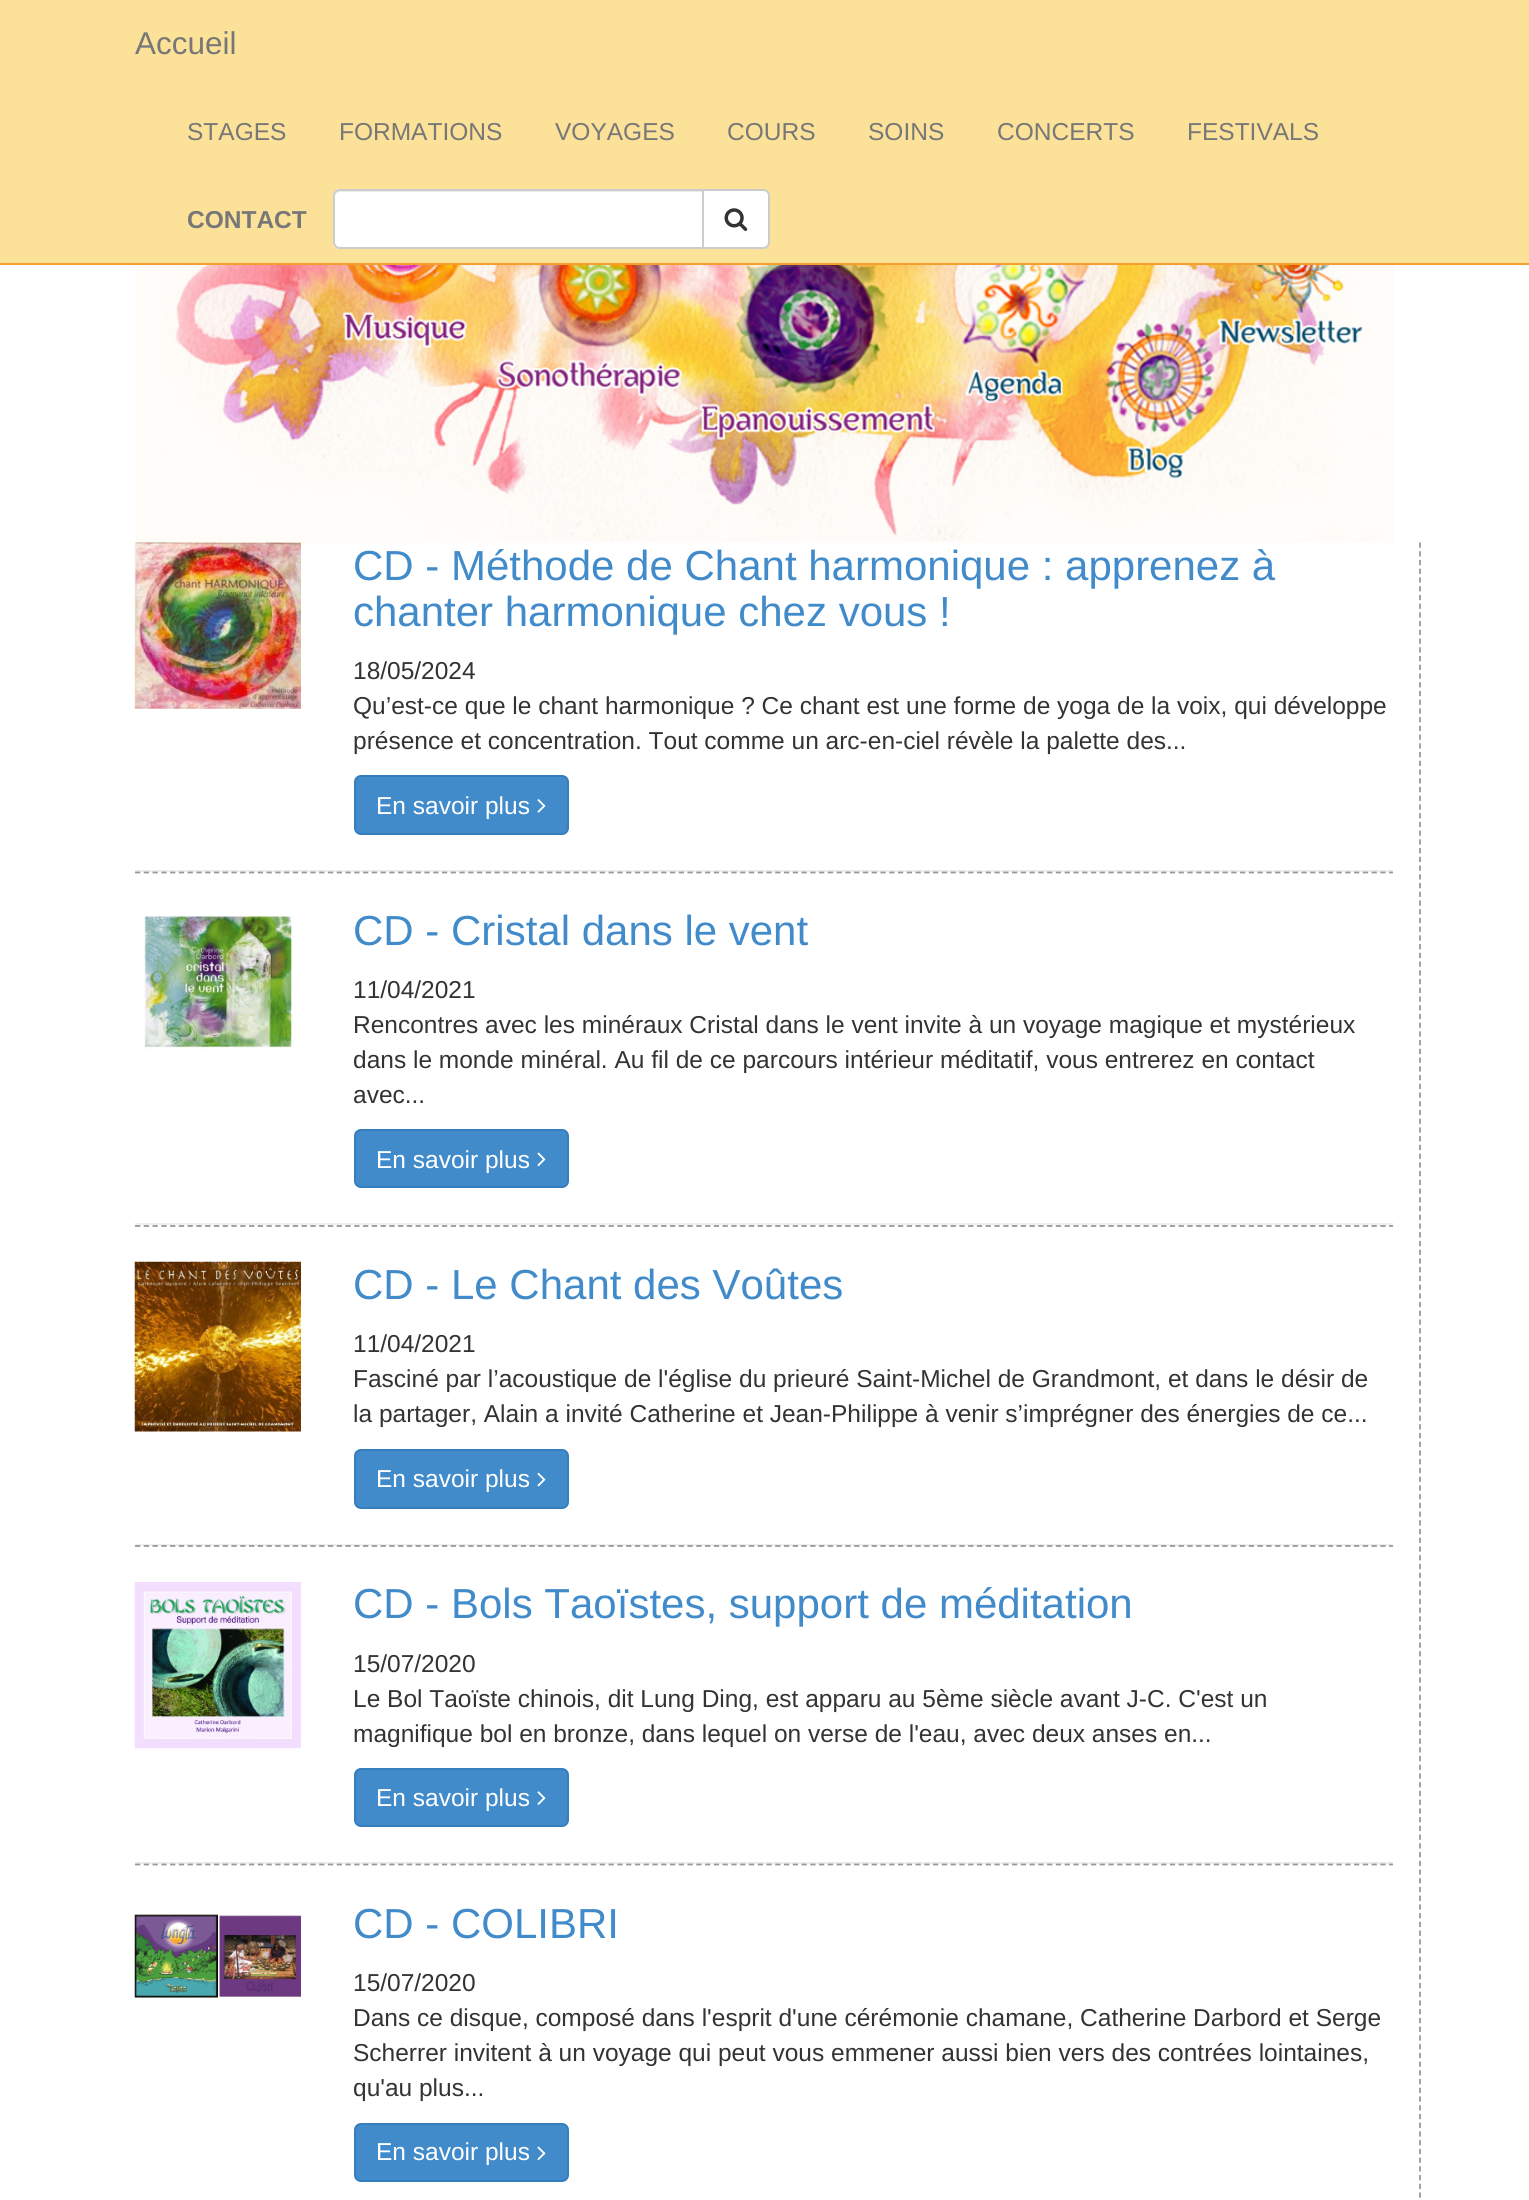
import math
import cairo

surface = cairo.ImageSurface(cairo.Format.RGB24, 1529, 2200)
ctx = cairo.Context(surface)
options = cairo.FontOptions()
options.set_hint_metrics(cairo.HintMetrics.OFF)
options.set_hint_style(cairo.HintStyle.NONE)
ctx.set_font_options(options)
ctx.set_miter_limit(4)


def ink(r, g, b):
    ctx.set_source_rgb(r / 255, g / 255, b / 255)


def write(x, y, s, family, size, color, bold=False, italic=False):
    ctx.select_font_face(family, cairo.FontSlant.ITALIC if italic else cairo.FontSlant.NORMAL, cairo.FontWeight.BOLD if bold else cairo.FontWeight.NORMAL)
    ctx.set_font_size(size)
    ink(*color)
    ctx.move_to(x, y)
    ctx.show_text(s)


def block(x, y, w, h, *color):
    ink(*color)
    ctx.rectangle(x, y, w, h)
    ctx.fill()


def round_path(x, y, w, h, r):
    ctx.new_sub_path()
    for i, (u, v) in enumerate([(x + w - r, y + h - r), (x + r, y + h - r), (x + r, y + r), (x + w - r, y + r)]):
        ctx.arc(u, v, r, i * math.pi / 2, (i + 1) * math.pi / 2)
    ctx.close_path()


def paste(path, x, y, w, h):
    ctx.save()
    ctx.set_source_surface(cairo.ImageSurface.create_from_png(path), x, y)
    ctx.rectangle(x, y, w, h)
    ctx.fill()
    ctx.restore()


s1 = dict(family="Liberation Sans", size=31.5, color=(119, 119, 119))
s2 = dict(family="Liberation Sans", size=24.5, color=(119, 119, 119))
s3 = dict(family="Liberation Sans", size=24.5, color=(119, 119, 119), bold=True)
s4 = dict(family="Liberation Sans", size=42, color=(66, 139, 202))
s5 = dict(family="Liberation Sans", size=24.5, color=(51, 51, 51))
s6 = dict(family="Liberation Sans", size=24.5, color=(255, 255, 255))

ink(255, 255, 255)
ctx.paint()
block(0, 0, 1529, 263, 252, 225, 153)
block(0, 263, 1529, 2, 244, 158, 43)
write(135, 54, "Accueil", **s1)
write(187, 140, "STAGES", **s2)
write(339, 140, "FORMATIONS", **s2)
write(555, 140, "VOYAGES", **s2)
write(727, 140, "COURS", **s2)
write(868, 140, "SOINS", **s2)
write(997, 140, "CONCERTS", **s2)
write(1187, 140, "FESTIVALS", **s2)
write(187, 228, "CONTACT", **s3)
ink(255, 255, 255)
ctx.new_path()
ctx.move_to(340, 189)
ctx.line_to(704, 189)
ctx.line_to(704, 249)
ctx.line_to(340, 249)
ctx.curve_to(336, 249, 333, 246, 333, 242)
ctx.line_to(333, 196)
ctx.curve_to(333, 192, 336, 189, 340, 189)
ctx.close_path()
ctx.fill()
ink(236, 236, 236)
ctx.new_path()
ctx.move_to(340, 192)
ctx.line_to(702, 192)
ctx.line_to(702, 191)
ctx.line_to(339, 191)
ctx.curve_to(335, 191, 334, 195, 334, 198)
ctx.curve_to(334, 195, 337, 192, 340, 192)
ctx.close_path()
ctx.fill()
ctx.new_path()
ctx.move_to(340, 190)
ctx.line_to(703, 190)
ctx.line_to(703, 248)
ctx.line_to(340, 248)
ctx.curve_to(336.5, 248, 334, 245.5, 334, 242)
ctx.line_to(334, 196)
ctx.curve_to(334, 192.5, 336.5, 190, 340, 190)
ctx.close_path()
ink(204, 204, 204)
ctx.stroke()
ink(255, 255, 255)
ctx.new_path()
ctx.move_to(703, 190)
ctx.line_to(763, 190)
ctx.curve_to(766.5, 190, 769, 192.5, 769, 196)
ctx.line_to(769, 242)
ctx.curve_to(769, 245.5, 766.5, 248, 763, 248)
ctx.line_to(703, 248)
ctx.close_path()
ctx.fill_preserve()
ink(204, 204, 204)
ctx.stroke()
paste("pic1.png", 724, 208, 24, 23)
paste("pic2.png", 135, 265, 1260, 278)
ctx.new_path()
ctx.move_to(1420, 542.5)
ctx.line_to(1420, 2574)
ink(153, 153, 153)
ctx.set_line_width(1.8)
ctx.set_dash([5.25, 3.48])
ctx.stroke()
paste("pic3.png", 134, 542, 167, 167)
write(353, 580, "CD - Méthode de Chant harmonique : apprenez à", **s4)
write(353, 626, "chanter harmonique chez vous !", **s4)
write(353, 679, "18/05/2024", **s5)
write(353, 714, "Qu’est-ce que le chant harmonique ? Ce chant est une forme de yoga de la voix, qui développe", **s5)
write(353, 749, "présence et concentration. Tout comme un arc-en-ciel révèle la palette des...", **s5)
ink(66, 139, 202)
round_path(355, 776, 213, 58, 6)
ctx.fill_preserve()
ink(53, 126, 189)
ctx.set_line_width(2)
ctx.set_dash([])
ctx.stroke()
write(376, 814, "En savoir plus", **s6)
paste("pic4.png", 537, 799, 9, 14)
block(135, 870, 1258, 2, 238, 238, 238)
ctx.new_path()
ctx.move_to(135, 872.5)
ctx.line_to(1393, 872.5)
ink(153, 153, 153)
ctx.set_line_width(1.8)
ctx.set_dash([5.25, 3.52])
ctx.stroke()
paste("pic5.png", 144, 915, 149, 135)
write(353, 945, "CD - Cristal dans le vent", **s4)
write(353, 998, "11/04/2021", **s5)
write(353, 1033, "Rencontres avec les minéraux Cristal dans le vent invite à un voyage magique et mystérieux", **s5)
write(353, 1068, "dans le monde minéral. Au fil de ce parcours intérieur méditatif, vous entrerez en contact", **s5)
write(353, 1103, "avec...", **s5)
ink(66, 139, 202)
round_path(355, 1130, 213, 57, 6)
ctx.fill_preserve()
ink(53, 126, 189)
ctx.set_line_width(2)
ctx.set_dash([])
ctx.stroke()
write(376, 1168, "En savoir plus", **s6)
paste("pic6.png", 537, 1152, 9, 15)
block(135, 1223, 1258, 2, 238, 238, 238)
ctx.new_path()
ctx.move_to(135, 1226)
ctx.line_to(1393, 1226)
ink(153, 153, 153)
ctx.set_line_width(1.8)
ctx.set_dash([5.25, 3.52])
ctx.stroke()
paste("pic7.png", 134, 1261, 167, 171)
write(353, 1299, "CD - Le Chant des Voûtes", **s4)
write(353, 1352, "11/04/2021", **s5)
write(353, 1387, "Fasciné par l’acoustique de l'église du prieuré Saint-Michel de Grandmont, et dans le désir de", **s5)
write(353, 1422, "la partager, Alain a invité Catherine et Jean-Philippe à venir s’imprégner des énergies de ce...", **s5)
ink(66, 139, 202)
round_path(355, 1450, 213, 58, 6)
ctx.fill_preserve()
ink(53, 126, 189)
ctx.set_line_width(2)
ctx.set_dash([])
ctx.stroke()
write(376, 1487, "En savoir plus", **s6)
paste("pic8.png", 537, 1472, 9, 15)
block(135, 1544, 1258, 2, 238, 238, 238)
ctx.new_path()
ctx.move_to(135, 1546)
ctx.line_to(1393, 1546)
ink(153, 153, 153)
ctx.set_line_width(1.8)
ctx.set_dash([5.25, 3.52])
ctx.stroke()
paste("pic9.png", 134, 1582, 167, 167)
write(353, 1618, "CD - Bols Taoïstes, support de méditation", **s4)
write(353, 1672, "15/07/2020", **s5)
write(353, 1707, "Le Bol Taoïste chinois, dit Lung Ding, est apparu au 5ème siècle avant J-C. C'est un", **s5)
write(353, 1742, "magnifique bol en bronze, dans lequel on verse de l'eau, avec deux anses en...", **s5)
ink(66, 139, 202)
round_path(355, 1769, 213, 57, 6)
ctx.fill_preserve()
ink(53, 126, 189)
ctx.set_line_width(2)
ctx.set_dash([])
ctx.stroke()
write(376, 1806, "En savoir plus", **s6)
paste("pic10.png", 537, 1791, 9, 14)
block(135, 1862, 1258, 2, 238, 238, 238)
ctx.new_path()
ctx.move_to(135, 1864.5)
ctx.line_to(1393, 1864.5)
ink(153, 153, 153)
ctx.set_line_width(1.8)
ctx.set_dash([5.25, 3.52])
ctx.stroke()
paste("pic11.png", 134, 1914, 167, 84)
write(353, 1938, "CD - COLIBRI", **s4)
write(353, 1991, "15/07/2020", **s5)
write(353, 2026, "Dans ce disque, composé dans l'esprit d'une cérémonie chamane, Catherine Darbord et Serge", **s5)
write(353, 2061, "Scherrer invitent à un voyage qui peut vous emmener aussi bien vers des contrées lointaines,", **s5)
write(353, 2096, "qu'au plus...", **s5)
ink(66, 139, 202)
round_path(355, 2124, 213, 57, 6)
ctx.fill_preserve()
ink(53, 126, 189)
ctx.set_line_width(2)
ctx.set_dash([])
ctx.stroke()
write(376, 2160, "En savoir plus", **s6)
paste("pic6.png", 537, 2146, 9, 15)
surface.write_to_png("screenshot.png")
